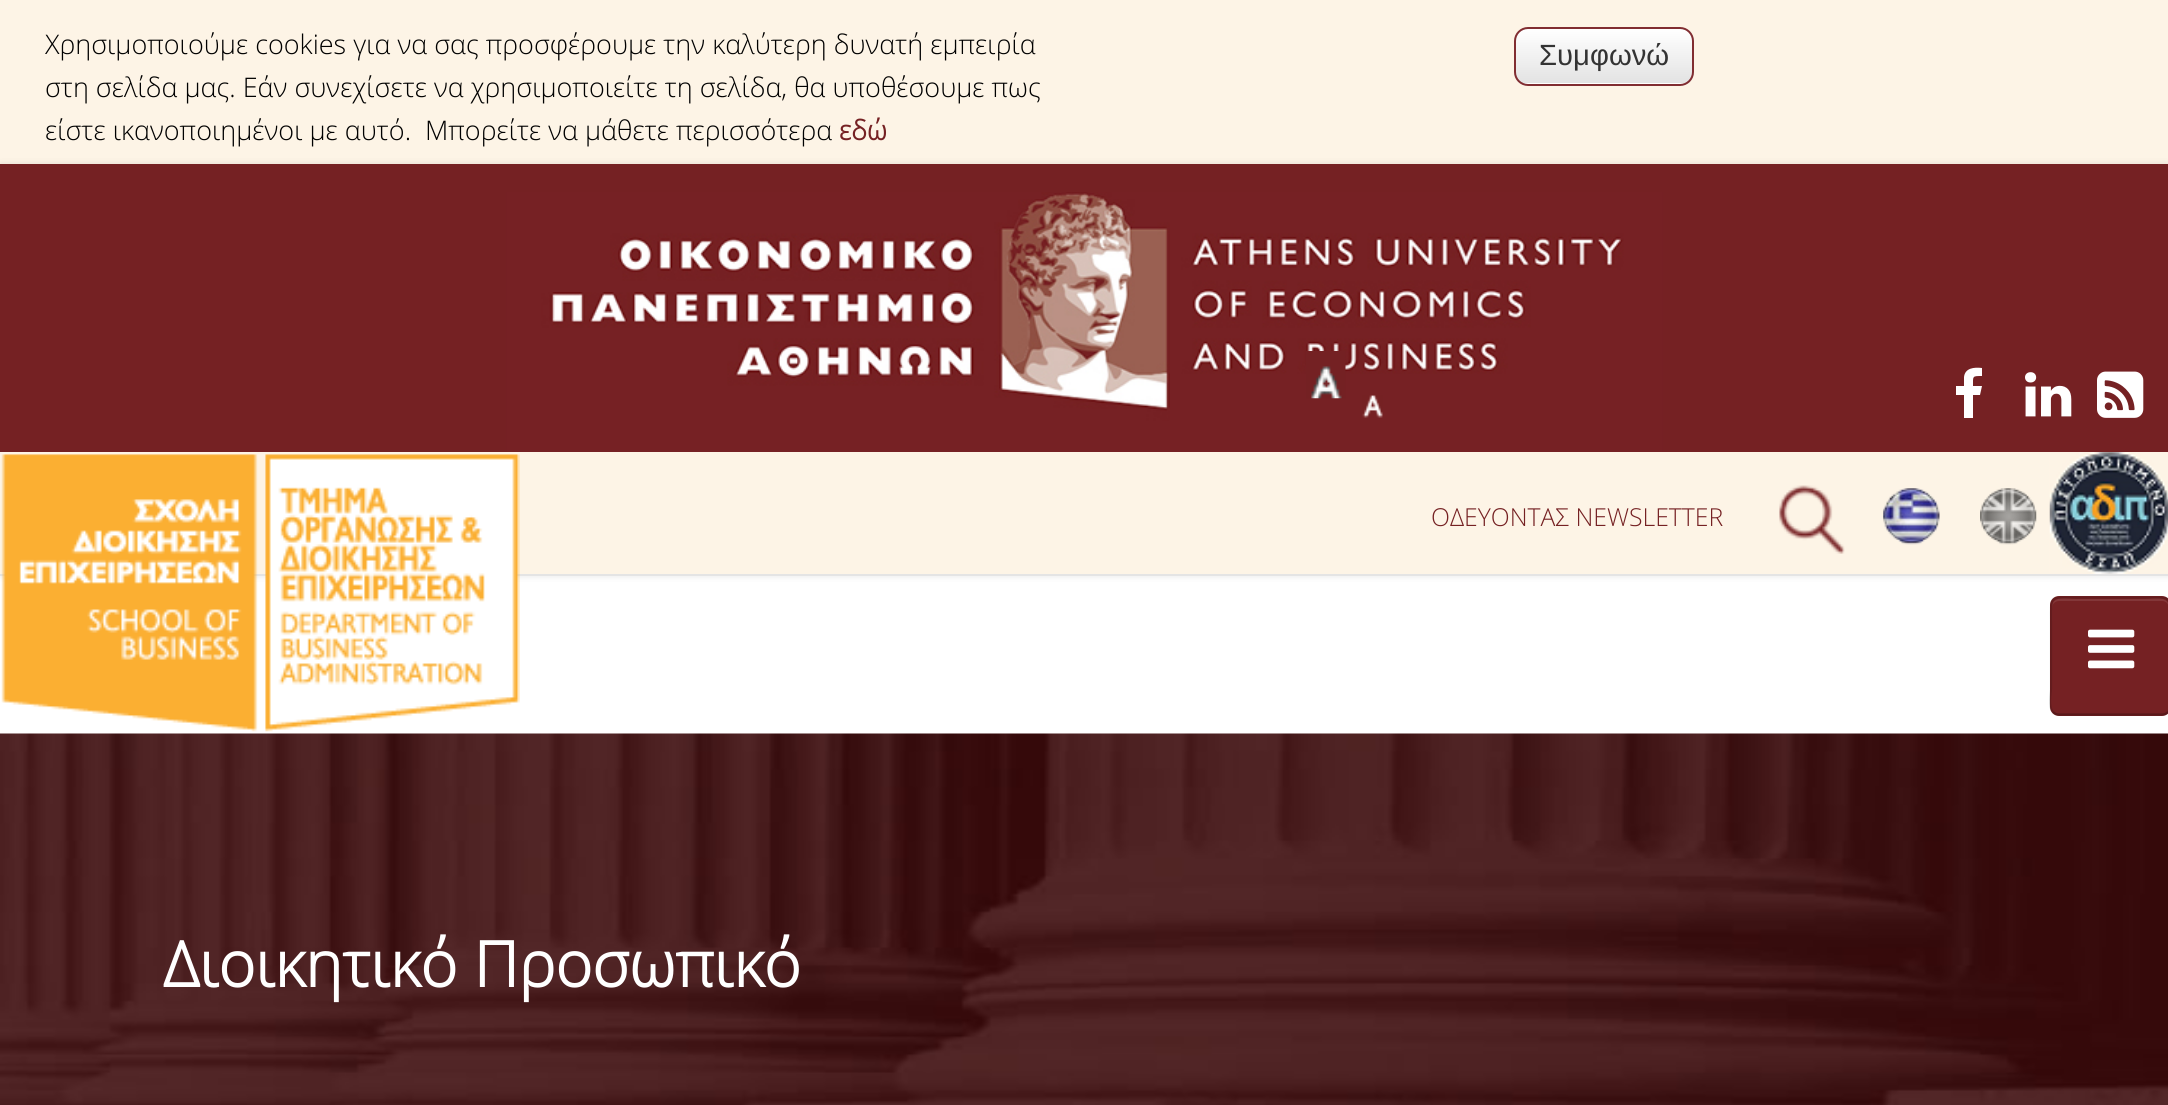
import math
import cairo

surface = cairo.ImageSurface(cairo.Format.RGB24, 2168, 1105)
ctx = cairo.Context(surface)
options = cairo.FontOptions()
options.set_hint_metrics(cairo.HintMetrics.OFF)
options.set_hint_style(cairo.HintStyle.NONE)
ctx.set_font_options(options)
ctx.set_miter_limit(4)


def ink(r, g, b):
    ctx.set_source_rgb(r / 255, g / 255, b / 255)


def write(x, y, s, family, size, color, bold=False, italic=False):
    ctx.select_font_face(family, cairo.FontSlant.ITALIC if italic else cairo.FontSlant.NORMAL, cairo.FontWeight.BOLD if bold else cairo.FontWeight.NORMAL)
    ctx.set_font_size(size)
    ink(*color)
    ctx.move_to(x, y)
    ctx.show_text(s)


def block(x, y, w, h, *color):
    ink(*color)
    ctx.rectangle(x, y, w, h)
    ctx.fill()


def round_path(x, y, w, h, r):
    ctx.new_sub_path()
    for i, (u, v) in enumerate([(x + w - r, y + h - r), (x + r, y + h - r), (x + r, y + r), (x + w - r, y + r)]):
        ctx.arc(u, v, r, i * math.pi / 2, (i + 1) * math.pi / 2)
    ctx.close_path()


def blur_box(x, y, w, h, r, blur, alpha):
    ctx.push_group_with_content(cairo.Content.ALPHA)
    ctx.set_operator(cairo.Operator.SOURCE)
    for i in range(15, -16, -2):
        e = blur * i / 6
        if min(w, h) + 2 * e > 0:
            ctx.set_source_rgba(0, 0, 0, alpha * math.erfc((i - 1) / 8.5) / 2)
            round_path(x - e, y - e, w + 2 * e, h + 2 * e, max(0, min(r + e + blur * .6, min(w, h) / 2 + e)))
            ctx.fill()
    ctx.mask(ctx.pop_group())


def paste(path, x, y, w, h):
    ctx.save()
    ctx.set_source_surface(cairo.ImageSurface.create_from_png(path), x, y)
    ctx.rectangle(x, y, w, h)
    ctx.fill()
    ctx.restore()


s1 = dict(family="Open Sans Light", size=27, color=(0, 0, 0))
s2 = dict(family="Open Sans", size=27, color=(117, 33, 35), bold=True)
s3 = dict(family="Liberation Sans", size=29.25, color=(51, 51, 51))
s4 = dict(family="Open Sans Light", size=24.75, color=(117, 33, 35))
s5 = dict(family="Open Sans", size=63, color=(255, 255, 255), bold=True)

ink(255, 255, 255)
ctx.paint()
block(0, 0, 2168, 164, 253, 244, 230)
write(45, 54, "Χρησιμοποιούμε cookies για να σας προσφέρουμε την καλύτερη δυνατή εμπειρία", **s1)
write(45, 97, "στη σελίδα μας. Εάν συνεχίσετε να χρησιμοποιείτε τη σελίδα, θα υποθέσουμε πως", **s1)
write(45, 140, "είστε ικανοποιημένοι με αυτό.", **s1)
write(425, 140, "Μπορείτε να μάθετε περισσότερα", **s1)
write(839, 140, "εδώ", **s2)
ctx.save()
round_path(1514, 27, 180, 59, 14)
ctx.clip()
gradient = cairo.LinearGradient(1604, 29, 1604, 83)
gradient.add_color_stop_rgba(0, 1, 1, 1, 1)
gradient.add_color_stop_rgba(1, 0.89, 0.89, 0.89, 1)
ctx.set_source(gradient)
ctx.rectangle(1514, 29, 180, 54)
ctx.fill()
gradient = cairo.LinearGradient(1604, 83, 1604, 137)
gradient.add_color_stop_rgba(0, 1, 1, 1, 1)
gradient.add_color_stop_rgba(1, 0.89, 0.89, 0.89, 1)
ctx.set_source(gradient)
ctx.rectangle(1514, 83, 180, 3)
ctx.fill()
ctx.restore()
round_path(1515, 28, 178, 57, 13)
ink(129, 45, 49)
ctx.stroke()
write(1539, 65, "Συμφωνώ", **s3)
ink(0, 0, 0)
blur_box(0, 164, 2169, 412, 0, 3.5, 0.1)
block(0, 574, 2168, 2, 228, 228, 228)
block(0, 452, 2168, 122, 253, 244, 230)
paste("pic1.png", 1, 454, 519, 278)
ink(117, 33, 35)
round_path(2050, 596, 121, 120, 9)
ctx.fill()
ink(131, 55, 57)
ctx.new_path()
ctx.move_to(2059, 601)
ctx.line_to(2162, 601)
ctx.curve_to(2166, 601, 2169, 604, 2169, 608)
ctx.curve_to(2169, 595, 2155, 599, 2145, 599)
ctx.line_to(2076, 599)
ctx.curve_to(2066, 599, 2052, 595, 2052, 608)
ctx.curve_to(2052, 604, 2055, 601, 2059, 601)
ctx.close_path()
ctx.fill()
ctx.new_path()
ctx.move_to(2168, 712)
ctx.curve_to(2166.5, 713.5, 2164.5, 714.5, 2162, 714.5)
ctx.line_to(2059, 714.5)
ctx.curve_to(2056.5, 714.5, 2054.5, 713.5, 2053, 712)
ctx.set_source_rgba(0, 0, 0, 0.25)
ctx.set_line_width(2.2)
ctx.stroke()
ctx.new_path()
ctx.move_to(2053, 712)
ctx.curve_to(2048, 707, 2051, 692.5, 2051, 689.5)
ctx.line_to(2051, 622)
ctx.curve_to(2051, 595, 2048.5, 597.5, 2076, 597.5)
ctx.line_to(2145, 597.5)
ctx.curve_to(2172.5, 597.5, 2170, 595, 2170, 622)
ctx.line_to(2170, 689.5)
ctx.curve_to(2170, 692.5, 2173, 707, 2168, 712)
ctx.set_source_rgba(0, 0, 0, 0.15)
ctx.stroke()
paste("pic2.png", 2088, 629, 47, 40)
block(0, 164, 2168, 288, 117, 33, 35)
paste("pic3.png", 506, 192, 1157, 260)
paste("pic4.png", 1306, 351, 40, 48)
paste("pic5.png", 1362, 395, 21, 23)
ink(255, 255, 255)
ctx.new_path()
ctx.move_to(1982, 368)
ctx.line_to(1982, 376)
ctx.curve_to(1972, 376, 1973, 376, 1973, 386)
ctx.line_to(1982, 386)
ctx.line_to(1980, 395)
ctx.line_to(1973, 395)
ctx.line_to(1973, 418)
ctx.line_to(1964, 418)
ctx.line_to(1964, 395)
ctx.line_to(1956, 395)
ctx.line_to(1956, 386)
ctx.line_to(1964, 386)
ctx.line_to(1964, 377)
ctx.curve_to(1965, 368, 1974, 367, 1982, 368)
ctx.close_path()
ctx.fill()
paste("pic6.png", 2025, 372, 47, 45)
paste("pic7.png", 2097, 371, 47, 47)
write(1431, 526, "ΟΔΕΥΟΝΤΑΣ NEWSLETTER", **s4)
paste("pic8.png", 1779, 485, 66, 69)
paste("pic9.png", 1883, 488, 57, 57)
paste("pic10.png", 1980, 488, 57, 57)
paste("pic11.png", 2049, 452, 119, 122)
paste("pic12.png", 0, 733, 2168, 372)
write(163, 987, "Διοικητικό Προσωπικό", **s5)
surface.write_to_png("screenshot.png")
